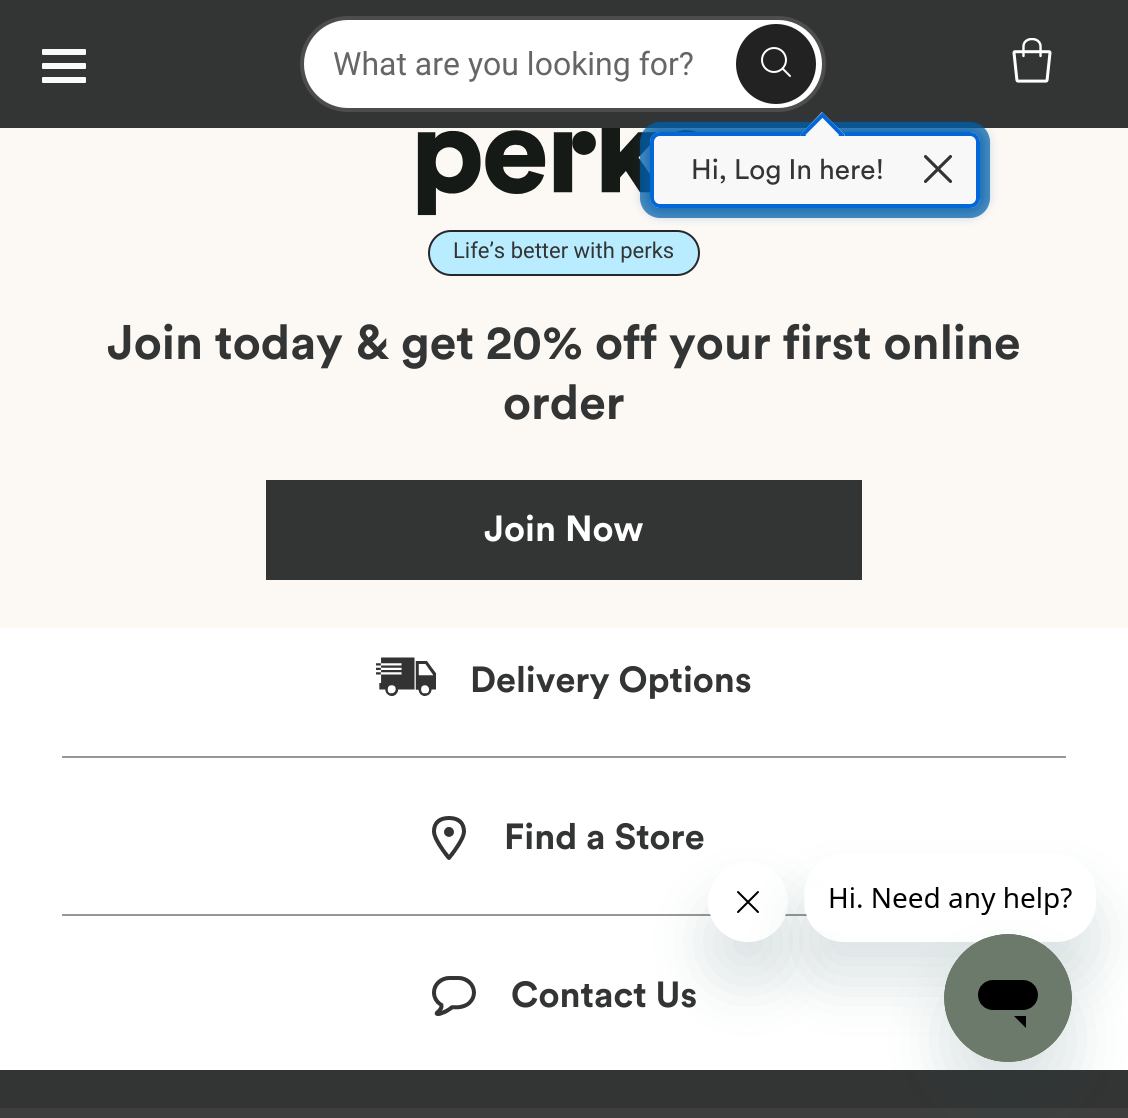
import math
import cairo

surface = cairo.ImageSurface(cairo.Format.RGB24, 1128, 1118)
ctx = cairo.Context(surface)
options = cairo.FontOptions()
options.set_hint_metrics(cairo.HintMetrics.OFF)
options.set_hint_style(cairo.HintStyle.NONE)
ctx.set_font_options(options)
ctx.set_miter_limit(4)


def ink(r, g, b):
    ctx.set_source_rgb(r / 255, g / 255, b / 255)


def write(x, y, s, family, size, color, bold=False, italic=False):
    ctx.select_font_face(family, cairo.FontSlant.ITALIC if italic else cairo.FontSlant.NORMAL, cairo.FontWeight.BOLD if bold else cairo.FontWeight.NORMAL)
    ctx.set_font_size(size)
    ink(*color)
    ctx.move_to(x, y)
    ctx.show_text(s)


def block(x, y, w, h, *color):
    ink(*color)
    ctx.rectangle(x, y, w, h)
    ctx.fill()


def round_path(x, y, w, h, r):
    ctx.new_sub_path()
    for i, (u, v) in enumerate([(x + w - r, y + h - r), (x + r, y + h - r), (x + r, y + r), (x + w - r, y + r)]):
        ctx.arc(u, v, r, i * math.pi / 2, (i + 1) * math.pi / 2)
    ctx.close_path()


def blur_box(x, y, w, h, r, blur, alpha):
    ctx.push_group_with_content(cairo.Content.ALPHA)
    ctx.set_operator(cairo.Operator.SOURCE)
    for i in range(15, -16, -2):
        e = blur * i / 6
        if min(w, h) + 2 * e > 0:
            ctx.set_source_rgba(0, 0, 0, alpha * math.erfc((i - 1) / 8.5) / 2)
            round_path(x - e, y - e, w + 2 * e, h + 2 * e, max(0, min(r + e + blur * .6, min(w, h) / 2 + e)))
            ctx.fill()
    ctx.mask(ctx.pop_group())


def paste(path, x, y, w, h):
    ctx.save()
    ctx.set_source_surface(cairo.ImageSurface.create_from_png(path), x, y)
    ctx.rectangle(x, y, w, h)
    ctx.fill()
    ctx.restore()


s1 = dict(family="Roboto", size=32, color=(102, 102, 102))
s2 = dict(family="Circular", size=28, color=(51, 52, 52))
s3 = dict(family="Roboto", size=22, color=(51, 52, 52))
s4 = dict(family="Circular", size=48, color=(51, 52, 52), bold=True)
s5 = dict(family="Circular", size=36, color=(255, 255, 255), bold=True)
s6 = dict(family="Circular", size=36, color=(51, 52, 52), bold=True)

ink(255, 255, 255)
ctx.paint()
block(0, 0, 1128, 128, 51, 52, 52)
paste("pic1.png", 42, 49, 44, 34)
ink(255, 255, 255)
round_path(302, 18, 522, 92, 46)
ctx.fill_preserve()
ink(77, 77, 77)
ctx.set_line_width(4)
ctx.stroke()
write(333, 75, "What are you looking for?", **s1)
ink(34, 34, 34)
ctx.new_path()
ctx.arc(776, 64, 40, 0, 2 * math.pi)
ctx.fill()
ctx.new_path()
ctx.move_to(783, 69)
ctx.line_to(790, 76)
ink(255, 255, 255)
ctx.set_line_width(2)
ctx.set_line_cap(cairo.LineCap.ROUND)
ctx.stroke()
ctx.arc(774, 60, 12, 0, 2 * math.pi)
ctx.set_line_cap(cairo.LineCap.BUTT)
ctx.stroke()
paste("pic2.png", 1012, 38, 40, 45)
block(0, 128, 1128, 500, 252, 248, 244)
paste("pic4.png", 417, 128, 280, 88)
ink(185, 236, 255)
round_path(429, 231, 270, 44, 22)
ctx.fill_preserve()
ink(39, 39, 42)
ctx.stroke()
ink(0, 96, 172)
blur_box(646, 128, 338, 84, 14, 6, 0.7)
ink(255, 255, 255)
round_path(650, 132, 330, 76, 10)
ctx.fill()
round_path(645, 127, 340, 86, 15)
ctx.set_source_rgba(0, 0.376, 0.675, 0.7)
ctx.set_line_width(10)
ctx.stroke()
round_path(652, 134, 326, 72, 8)
ink(3, 103, 216)
ctx.set_line_width(4)
ctx.stroke()
ink(248, 248, 248)
ctx.new_path()
ctx.move_to(845, 135)
ctx.line_to(822, 158)
ctx.line_to(800, 135)
ctx.line_to(822, 112)
ctx.close_path()
ctx.fill()
ctx.new_path()
ctx.move_to(842, 135)
ctx.line_to(822.5, 155)
ctx.line_to(802.5, 135)
ctx.line_to(822.5, 115)
ctx.close_path()
ink(3, 103, 216)
ctx.stroke()
ink(248, 248, 248)
round_path(654, 136, 322, 68, 10)
ctx.fill()
write(691, 179, "Hi, Log In here!", **s2)
paste("pic3.png", 924, 155, 28, 28)
write(453, 258, "Life’s better with perks", **s3)
write(107, 359, "Join today & get 20% off your first online", **s4)
write(503, 419, "order", **s4)
block(266, 480, 596, 100, 51, 52, 52)
write(484, 541, "Join Now", **s5)
paste("pic5.png", 376, 657, 60, 39)
write(470, 692, "Delivery Options", **s6)
block(62, 756, 1004, 2, 151, 151, 151)
paste("pic6.png", 432, 816, 34, 44)
write(504, 849, "Find a Store", **s6)
block(62, 914, 745, 2, 151, 151, 151)
paste("pic7.png", 432, 976, 44, 40)
write(511, 1007, "Contact Us", **s6)
block(0, 1070, 1128, 38, 51, 52, 52)
block(0, 1108, 1128, 10, 62, 62, 62)
ctx.save()
ctx.set_fill_rule(cairo.FillRule.EVEN_ODD)
ctx.new_path()
ctx.move_to(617, 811)
ctx.line_to(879, 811)
ctx.line_to(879, 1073)
ctx.line_to(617, 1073)
ctx.close_path()
ctx.move_to(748, 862)
ctx.curve_to(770, 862, 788, 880, 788, 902)
ctx.curve_to(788, 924, 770, 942, 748, 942)
ctx.curve_to(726, 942, 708, 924, 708, 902)
ctx.curve_to(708, 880, 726, 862, 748, 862)
ctx.close_path()
ctx.clip()
ink(23, 73, 77)
blur_box(708, 902, 80, 80, 40, 30, 0.15)
ctx.restore()
paste("pic9.png", 710, 891, 76, 25)
ctx.save()
ctx.set_fill_rule(cairo.FillRule.EVEN_ODD)
ctx.new_path()
ctx.move_to(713, 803)
ctx.line_to(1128, 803)
ctx.line_to(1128, 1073)
ctx.line_to(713, 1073)
ctx.close_path()
ctx.move_to(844, 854)
ctx.line_to(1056, 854)
ctx.curve_to(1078, 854, 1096, 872, 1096, 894)
ctx.line_to(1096, 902)
ctx.curve_to(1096, 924, 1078, 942, 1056, 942)
ctx.line_to(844, 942)
ctx.curve_to(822, 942, 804, 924, 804, 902)
ctx.line_to(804, 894)
ctx.curve_to(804, 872, 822, 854, 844, 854)
ctx.close_path()
ctx.clip()
ink(23, 73, 77)
blur_box(804, 894, 292, 88, 40, 30, 0.15)
ctx.restore()
paste("pic8.png", 805, 887, 267, 44)
ink(23, 73, 77)
blur_box(944, 974, 128, 128, 64, 30, 0.15)
paste("pic10.png", 944, 934, 128, 128)
surface.write_to_png("screenshot.png")
